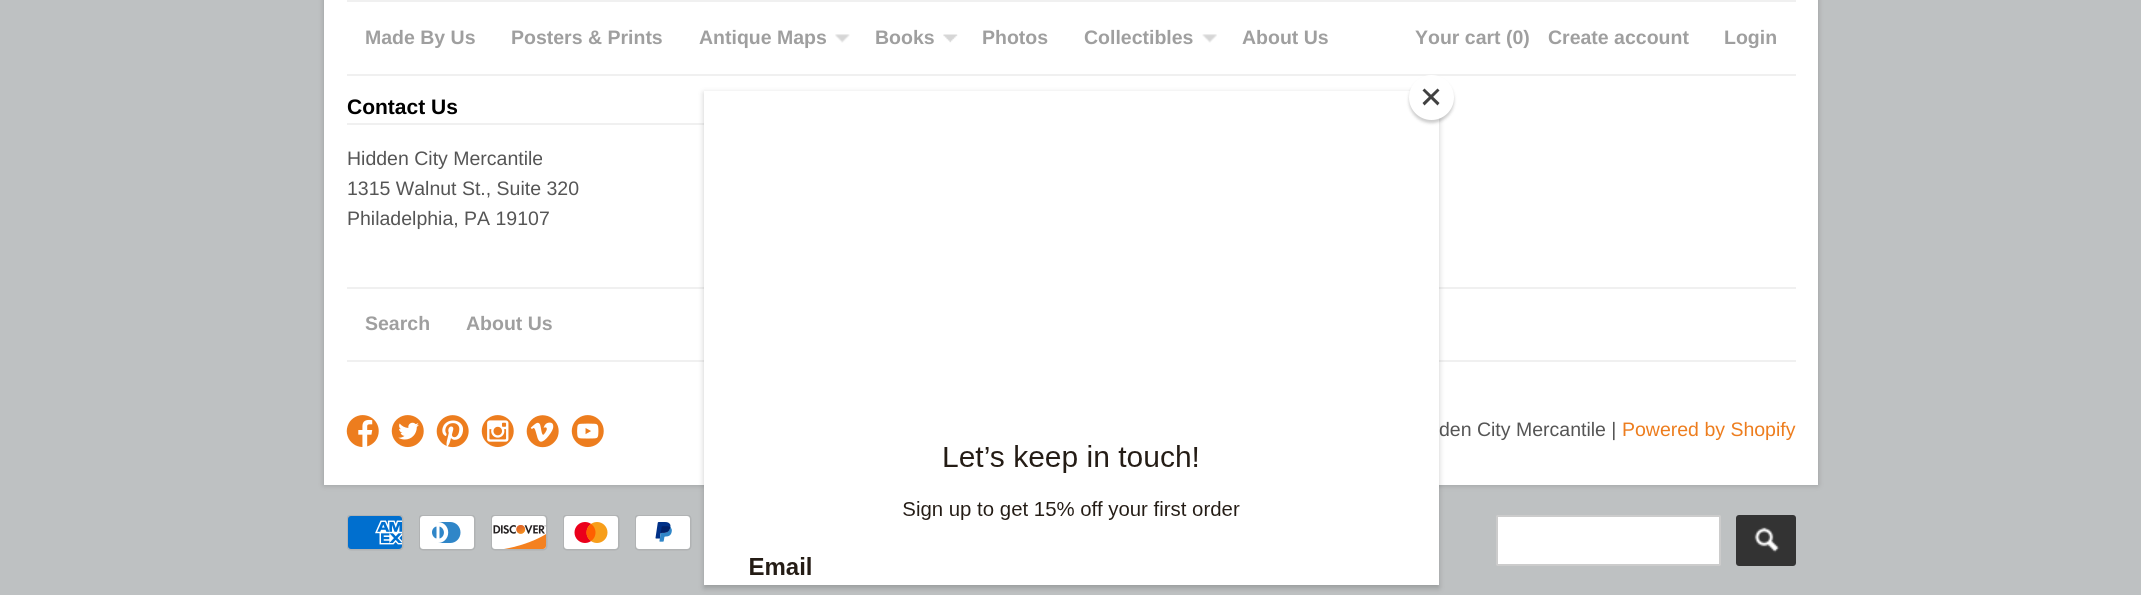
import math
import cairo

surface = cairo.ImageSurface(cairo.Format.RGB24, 2141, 595)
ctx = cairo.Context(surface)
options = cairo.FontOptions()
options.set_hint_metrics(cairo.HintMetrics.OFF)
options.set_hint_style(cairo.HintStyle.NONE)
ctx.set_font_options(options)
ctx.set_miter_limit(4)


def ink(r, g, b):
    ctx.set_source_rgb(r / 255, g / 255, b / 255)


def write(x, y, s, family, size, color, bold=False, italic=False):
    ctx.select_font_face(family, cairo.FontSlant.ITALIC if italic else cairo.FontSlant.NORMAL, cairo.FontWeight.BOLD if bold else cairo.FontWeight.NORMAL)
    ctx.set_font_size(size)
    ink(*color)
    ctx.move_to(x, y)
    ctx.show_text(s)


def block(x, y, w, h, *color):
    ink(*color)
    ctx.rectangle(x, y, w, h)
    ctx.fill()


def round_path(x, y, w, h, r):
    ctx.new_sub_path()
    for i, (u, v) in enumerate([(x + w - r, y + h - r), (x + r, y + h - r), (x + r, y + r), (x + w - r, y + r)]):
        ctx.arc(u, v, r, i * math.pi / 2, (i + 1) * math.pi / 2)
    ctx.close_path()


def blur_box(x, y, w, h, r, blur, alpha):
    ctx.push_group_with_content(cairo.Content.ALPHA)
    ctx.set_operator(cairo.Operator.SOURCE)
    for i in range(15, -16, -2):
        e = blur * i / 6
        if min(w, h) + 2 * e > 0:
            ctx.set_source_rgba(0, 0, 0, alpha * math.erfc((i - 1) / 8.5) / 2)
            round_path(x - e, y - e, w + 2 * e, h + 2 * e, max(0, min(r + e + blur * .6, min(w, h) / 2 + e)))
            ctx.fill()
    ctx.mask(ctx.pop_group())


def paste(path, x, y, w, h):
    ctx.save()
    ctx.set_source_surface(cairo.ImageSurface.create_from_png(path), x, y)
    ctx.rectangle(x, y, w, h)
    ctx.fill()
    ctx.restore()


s1 = dict(family="Liberation Sans", size=19.5, color=(159, 159, 159), bold=True)
s2 = dict(family="Liberation Sans", size=21, color=(0, 0, 0), bold=True)
s3 = dict(family="Liberation Sans", size=19.5, color=(85, 85, 85))
s4 = dict(family="Liberation Sans", size=19.5, color=(237, 125, 30))

ink(190, 193, 194)
ctx.paint()
ink(0, 0, 0)
blur_box(324, -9, 1494, 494, 0, 3, 0.2)
block(324, 0, 1494, 485, 255, 255, 255)
block(347, 0, 1449, 2, 240, 240, 240)
block(347, 74, 1449, 2, 240, 240, 240)
write(365, 44, "Made By Us", **s1)
write(511, 44, "Posters & Prints", **s1)
paste("pic1.png", 835, 34, 15, 9)
write(699, 44, "Antique Maps", **s1)
paste("pic2.png", 943, 34, 15, 9)
write(875, 44, "Books", **s1)
write(982, 44, "Photos", **s1)
paste("pic3.png", 1202, 34, 15, 9)
write(1084, 44, "Collectibles", **s1)
write(1242, 44, "About Us", **s1)
write(1415, 44, "Your cart (0)", **s1)
write(1548, 44, "Create account", **s1)
write(1724, 44, "Login", **s1)
block(347, 123, 357, 2, 240, 240, 240)
write(347, 114, "Contact Us", **s2)
write(347, 165, "Hidden City Mercantile", **s3)
write(347, 195, "1315 Walnut St., Suite 320", **s3)
write(347, 225, "Philadelphia, PA 19107", **s3)
block(347, 287, 1449, 2, 240, 240, 240)
block(347, 360, 1449, 2, 240, 240, 240)
write(365, 330, "Search", **s1)
write(466, 330, "About Us", **s1)
paste("pic4.png", 346, 415, 33, 32)
paste("pic5.png", 391, 415, 33, 33)
paste("pic6.png", 436, 415, 33, 33)
paste("pic7.png", 481, 415, 33, 33)
paste("pic8.png", 526, 415, 33, 33)
paste("pic9.png", 571, 415, 33, 33)
write(1439, 436, "den City Mercantile |", **s3)
write(1622, 436, "Powered by Shopify", **s4)
ink(0, 0, 0)
blur_box(704, 93, 735, 495, 0, 3, 0.2)
paste("pic10.png", 704, 91, 735, 494)
blur_box(1409, 78, 45, 45, 22.5, 1.5, 0.2)
ink(255, 255, 255)
ctx.arc(1431.5, 97.5, 22.5, 0, 2 * math.pi)
ctx.fill()
ink(65, 65, 65)
ctx.new_path()
ctx.move_to(1437.5, 88.5)
ctx.line_to(1439.5, 90.5)
ctx.line_to(1424.5, 105.5)
ctx.line_to(1422.5, 103)
ctx.close_path()
ctx.fill()
ctx.new_path()
ctx.move_to(1422.5, 90.5)
ctx.line_to(1424.5, 88.5)
ctx.line_to(1439.5, 103)
ctx.line_to(1437.5, 105.5)
ctx.close_path()
ctx.fill()
paste("pic11.png", 347, 515, 57, 36)
paste("pic12.png", 419, 515, 57, 36)
paste("pic13.png", 491, 515, 57, 36)
paste("pic14.png", 563, 515, 57, 36)
paste("pic15.png", 635, 515, 57, 36)
ink(255, 255, 255)
round_path(1497, 516, 223, 49, 0.5)
ctx.fill_preserve()
ink(204, 204, 204)
ctx.stroke()
ink(51, 51, 51)
round_path(1736, 515, 60, 51, 3)
ctx.fill()
paste("pic16.png", 1754, 527, 26, 26)
surface.write_to_png("screenshot.png")
